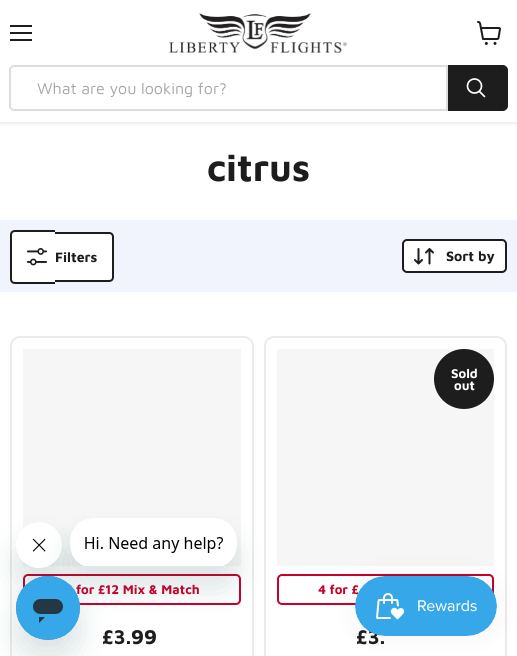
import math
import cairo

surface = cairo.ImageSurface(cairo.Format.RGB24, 517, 656)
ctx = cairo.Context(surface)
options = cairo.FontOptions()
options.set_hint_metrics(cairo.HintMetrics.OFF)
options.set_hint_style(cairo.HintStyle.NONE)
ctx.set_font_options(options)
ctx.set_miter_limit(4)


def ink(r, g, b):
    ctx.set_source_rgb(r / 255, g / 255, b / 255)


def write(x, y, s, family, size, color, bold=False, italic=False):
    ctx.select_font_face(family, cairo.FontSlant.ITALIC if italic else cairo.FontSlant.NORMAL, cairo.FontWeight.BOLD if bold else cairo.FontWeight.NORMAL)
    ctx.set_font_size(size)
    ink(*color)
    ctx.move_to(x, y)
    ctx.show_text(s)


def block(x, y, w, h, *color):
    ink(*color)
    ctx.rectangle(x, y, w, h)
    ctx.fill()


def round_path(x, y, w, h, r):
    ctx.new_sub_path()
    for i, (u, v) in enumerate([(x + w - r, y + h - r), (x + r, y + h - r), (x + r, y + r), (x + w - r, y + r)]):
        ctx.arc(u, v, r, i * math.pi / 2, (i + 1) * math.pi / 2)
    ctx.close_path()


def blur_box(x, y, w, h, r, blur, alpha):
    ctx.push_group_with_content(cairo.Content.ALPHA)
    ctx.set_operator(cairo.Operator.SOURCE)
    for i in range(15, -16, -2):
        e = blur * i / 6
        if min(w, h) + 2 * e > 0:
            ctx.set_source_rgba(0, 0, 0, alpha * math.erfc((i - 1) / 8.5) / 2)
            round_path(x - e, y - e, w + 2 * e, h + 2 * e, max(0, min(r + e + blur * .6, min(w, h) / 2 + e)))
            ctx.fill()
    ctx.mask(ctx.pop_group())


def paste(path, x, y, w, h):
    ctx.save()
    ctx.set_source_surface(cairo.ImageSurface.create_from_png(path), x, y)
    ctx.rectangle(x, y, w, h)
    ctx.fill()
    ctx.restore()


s1 = dict(family="Maven Pro", size=16, color=(165, 165, 165))
s2 = dict(family="Maven Pro", size=38, color=(29, 29, 29), bold=True)
s3 = dict(family="Maven Pro", size=14, color=(29, 29, 29), bold=True)
s4 = dict(family="Maven Pro", size=13, color=(202, 0, 42), bold=True)
s5 = dict(family="Maven Pro", size=20.5, color=(29, 29, 29), bold=True)
s6 = dict(family="Maven Pro", size=13, color=(255, 255, 255), bold=True)

ink(255, 255, 255)
ctx.paint()
ctx.save()
ctx.rectangle(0, 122, 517, 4)
ctx.clip()
ink(128, 128, 128)
blur_box(0, 1, 517, 122, 0, 2, 0.25)
ctx.restore()
block(10, 25, 22, 2, 29, 29, 29)
block(10, 32, 22, 2, 29, 29, 29)
block(10, 39, 22, 2, 29, 29, 29)
paste("pic1.png", 477, 21, 24, 24)
paste("pic2.png", 169, 13, 179, 40)
ctx.new_path()
ctx.move_to(14, 66)
ctx.line_to(447, 66)
ctx.line_to(447, 110)
ctx.line_to(14, 110)
ctx.curve_to(12, 110, 10, 108, 10, 106)
ctx.line_to(10, 70)
ctx.curve_to(10, 68, 12, 66, 14, 66)
ctx.close_path()
ink(221, 221, 221)
ctx.stroke()
ctx.save()
ctx.rectangle(37, 79, 399, 18)
ctx.clip()
write(37, 94, "What are you looking for?", **s1)
ctx.restore()
ink(29, 29, 29)
ctx.new_path()
ctx.move_to(449, 66)
ctx.line_to(503, 66)
ctx.curve_to(505, 66, 507, 68, 507, 70)
ctx.line_to(507, 106)
ctx.curve_to(507, 108, 505, 110, 503, 110)
ctx.line_to(449, 110)
ctx.close_path()
ctx.fill_preserve()
ctx.stroke()
ctx.new_path()
ctx.move_to(484.5, 96.5)
ctx.line_to(479.5, 91.5)
ink(255, 255, 255)
ctx.set_line_width(1.7)
ctx.set_line_cap(cairo.LineCap.ROUND)
ctx.stroke()
ctx.arc(474.5, 86, 7, 0, 2 * math.pi)
ctx.set_line_cap(cairo.LineCap.BUTT)
ctx.stroke()
write(207, 181, "citrus", **s2)
block(0, 220, 517, 72, 242, 244, 253)
ink(255, 255, 255)
ctx.new_path()
ctx.move_to(15, 230)
ctx.line_to(55, 230)
ctx.line_to(55, 284)
ctx.line_to(15, 284)
ctx.curve_to(12, 284, 10, 282, 10, 279)
ctx.line_to(10, 235)
ctx.curve_to(10, 232, 12, 230, 15, 230)
ctx.close_path()
ctx.fill()
ink(29, 29, 29)
ctx.set_fill_rule(cairo.FillRule.EVEN_ODD)
ctx.new_path()
ctx.move_to(15, 230)
ctx.line_to(55, 230)
ctx.line_to(55, 284)
ctx.line_to(15, 284)
ctx.curve_to(12, 284, 10, 282, 10, 279)
ctx.line_to(10, 235)
ctx.curve_to(10, 232, 12, 230, 15, 230)
ctx.close_path()
ctx.move_to(15, 232)
ctx.line_to(55, 232)
ctx.line_to(55, 282)
ctx.line_to(15, 282)
ctx.curve_to(13, 282, 12, 281, 12, 279)
ctx.line_to(12, 235)
ctx.curve_to(12, 233, 13, 232, 15, 232)
ctx.close_path()
ctx.fill()
ink(255, 255, 255)
ctx.new_path()
ctx.move_to(55, 232)
ctx.line_to(109, 232)
ctx.curve_to(112, 232, 114, 234, 114, 237)
ctx.line_to(114, 277)
ctx.curve_to(114, 280, 112, 282, 109, 282)
ctx.line_to(55, 282)
ctx.close_path()
ctx.fill()
ink(29, 29, 29)
ctx.new_path()
ctx.move_to(55, 232)
ctx.line_to(109, 232)
ctx.curve_to(112, 232, 114, 234, 114, 237)
ctx.line_to(114, 277)
ctx.curve_to(114, 280, 112, 282, 109, 282)
ctx.line_to(55, 282)
ctx.close_path()
ctx.move_to(55, 234)
ctx.line_to(109, 234)
ctx.curve_to(111, 234, 112, 235, 112, 237)
ctx.line_to(112, 277)
ctx.curve_to(112, 279, 111, 280, 109, 280)
ctx.line_to(55, 280)
ctx.close_path()
ctx.fill()
paste("pic3.png", 27, 248, 20, 18)
write(55, 262, "Filters", **s3)
ink(255, 255, 255)
round_path(403, 240, 103, 32, 4)
ctx.fill_preserve()
ink(29, 29, 29)
ctx.set_line_width(2)
ctx.stroke()
paste("pic4.png", 414, 248, 20, 17)
write(446, 261, "Sort by", **s3)
round_path(11, 337, 242, 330, 9)
ink(235, 235, 235)
ctx.stroke()
block(23, 349, 218, 217, 246, 246, 246)
round_path(24, 575, 216, 29, 4)
ink(202, 0, 42)
ctx.stroke()
write(76, 594, "for £12 Mix & Match", **s4)
write(102, 644, "£3.99", **s5)
round_path(265, 337, 241, 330, 9)
ink(235, 235, 235)
ctx.stroke()
block(277, 349, 217, 217, 246, 246, 246)
ink(29, 29, 29)
ctx.arc(464, 379, 29, 0, 2 * math.pi)
ctx.fill_preserve()
ctx.stroke()
write(451, 378, "Sold", **s6)
write(454, 390, "out", **s6)
round_path(278, 575, 215, 29, 4)
ink(202, 0, 42)
ctx.stroke()
write(318, 594, "4 for £", **s4)
write(356, 644, "£3.", **s5)
ctx.save()
ctx.new_path()
ctx.move_to(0, 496)
ctx.line_to(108, 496)
ctx.line_to(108, 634)
ctx.line_to(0, 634)
ctx.close_path()
ctx.move_to(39, 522)
ctx.curve_to(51.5, 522, 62, 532.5, 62, 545)
ctx.curve_to(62, 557.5, 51.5, 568, 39, 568)
ctx.curve_to(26.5, 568, 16, 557.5, 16, 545)
ctx.curve_to(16, 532.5, 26.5, 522, 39, 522)
ctx.close_path()
ctx.clip()
ink(23, 73, 77)
blur_box(16, 542, 46, 46, 23, 15, 0.15)
ctx.restore()
paste("pic6.png", 23, 522, 39, 44)
ink(23, 73, 77)
blur_box(70, 538, 167, 50, 23, 15, 0.15)
paste("pic5.png", 70, 518, 167, 48)
blur_box(16, 596, 64, 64, 32, 15, 0.15)
paste("pic7.png", 16, 576, 64, 64)
ink(0, 0, 0)
blur_box(355, 576, 142, 60, 30, 12.5, 0.05)
paste("pic8.png", 355, 576, 142, 60)
surface.write_to_png("screenshot.png")
